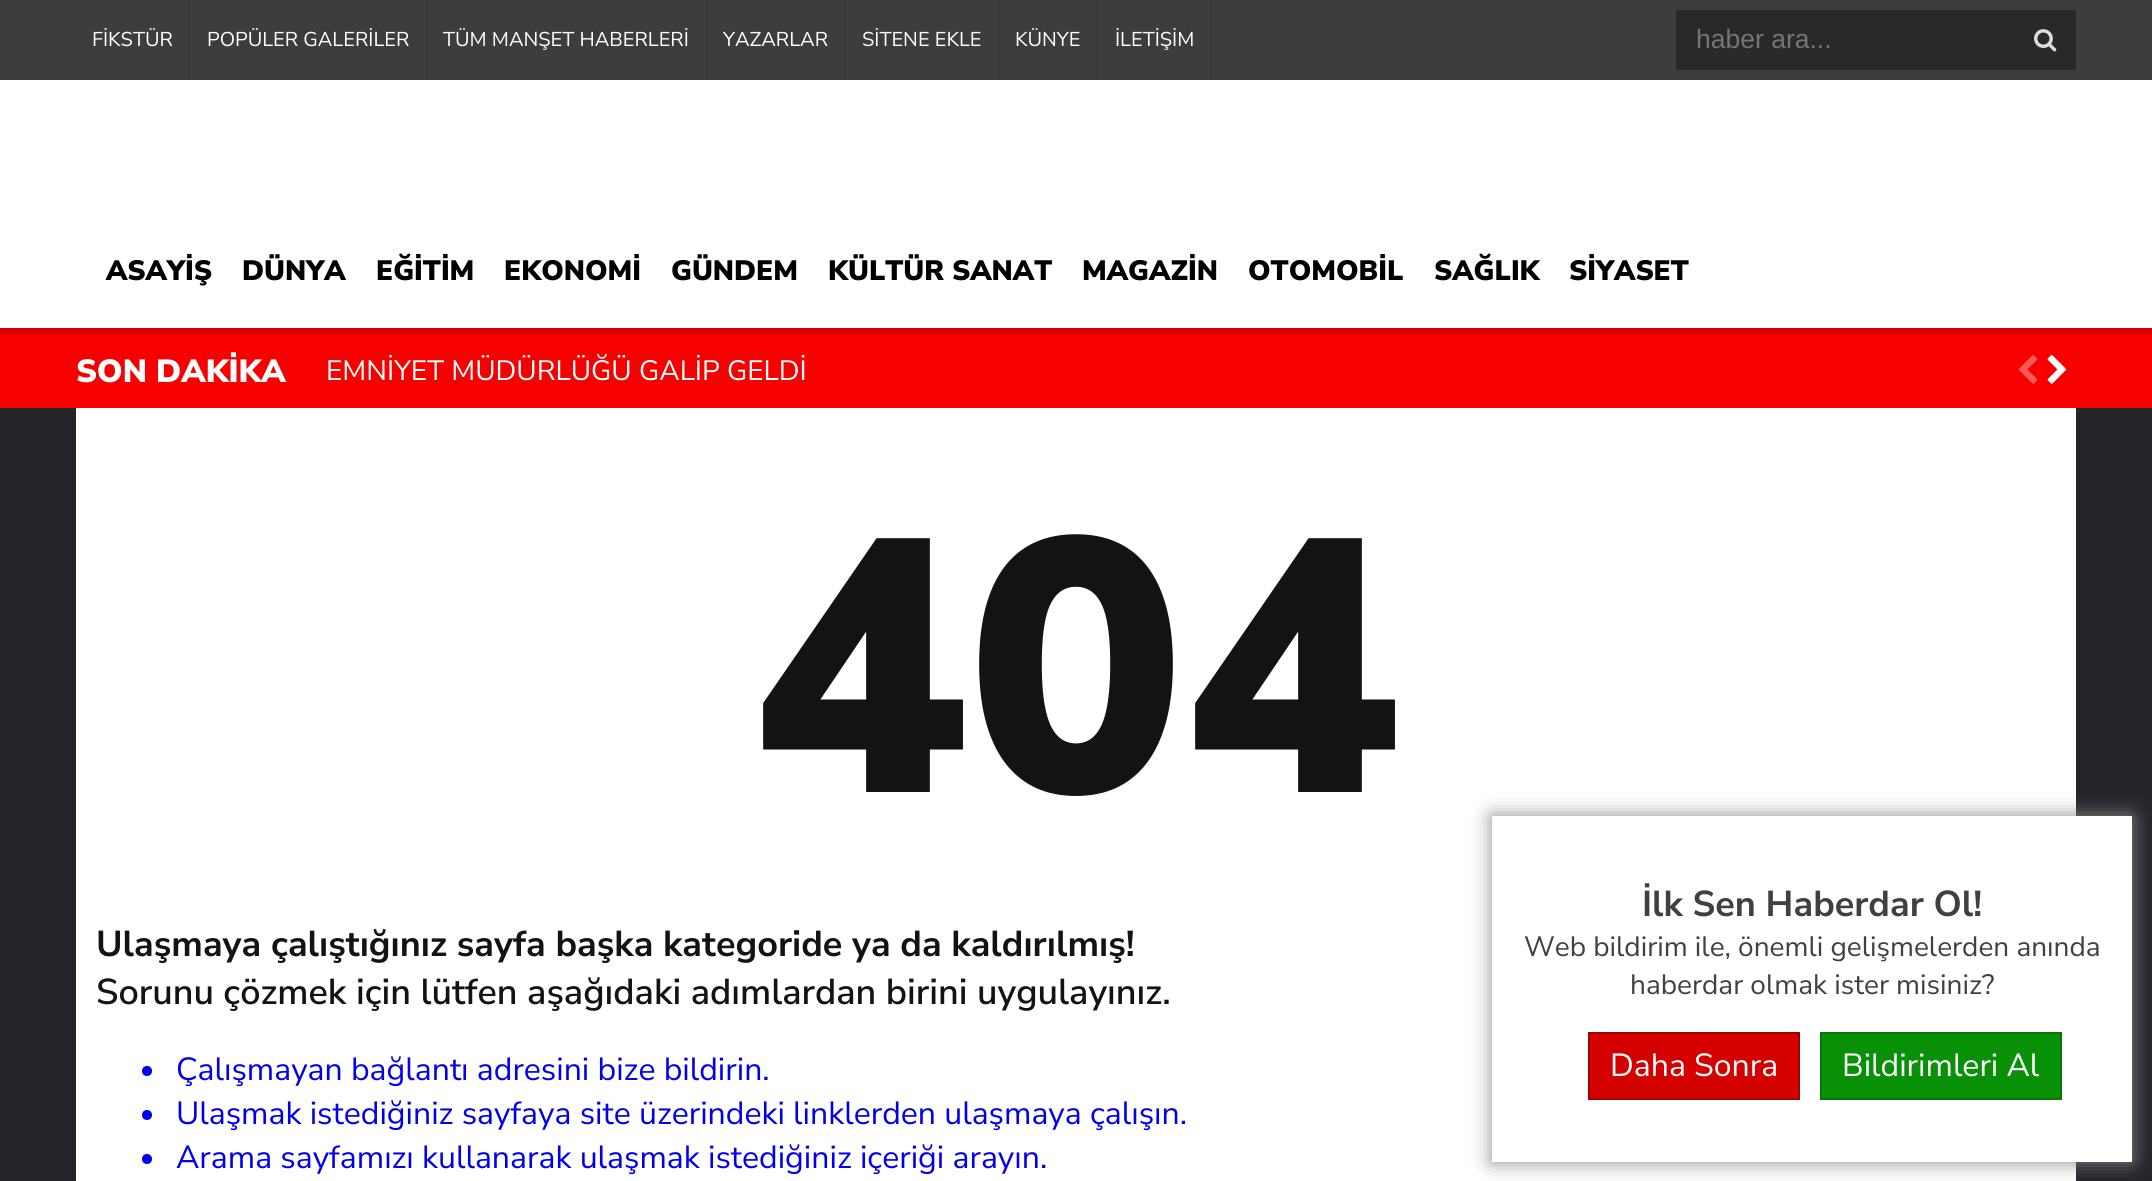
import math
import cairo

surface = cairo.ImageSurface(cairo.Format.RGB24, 2152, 1181)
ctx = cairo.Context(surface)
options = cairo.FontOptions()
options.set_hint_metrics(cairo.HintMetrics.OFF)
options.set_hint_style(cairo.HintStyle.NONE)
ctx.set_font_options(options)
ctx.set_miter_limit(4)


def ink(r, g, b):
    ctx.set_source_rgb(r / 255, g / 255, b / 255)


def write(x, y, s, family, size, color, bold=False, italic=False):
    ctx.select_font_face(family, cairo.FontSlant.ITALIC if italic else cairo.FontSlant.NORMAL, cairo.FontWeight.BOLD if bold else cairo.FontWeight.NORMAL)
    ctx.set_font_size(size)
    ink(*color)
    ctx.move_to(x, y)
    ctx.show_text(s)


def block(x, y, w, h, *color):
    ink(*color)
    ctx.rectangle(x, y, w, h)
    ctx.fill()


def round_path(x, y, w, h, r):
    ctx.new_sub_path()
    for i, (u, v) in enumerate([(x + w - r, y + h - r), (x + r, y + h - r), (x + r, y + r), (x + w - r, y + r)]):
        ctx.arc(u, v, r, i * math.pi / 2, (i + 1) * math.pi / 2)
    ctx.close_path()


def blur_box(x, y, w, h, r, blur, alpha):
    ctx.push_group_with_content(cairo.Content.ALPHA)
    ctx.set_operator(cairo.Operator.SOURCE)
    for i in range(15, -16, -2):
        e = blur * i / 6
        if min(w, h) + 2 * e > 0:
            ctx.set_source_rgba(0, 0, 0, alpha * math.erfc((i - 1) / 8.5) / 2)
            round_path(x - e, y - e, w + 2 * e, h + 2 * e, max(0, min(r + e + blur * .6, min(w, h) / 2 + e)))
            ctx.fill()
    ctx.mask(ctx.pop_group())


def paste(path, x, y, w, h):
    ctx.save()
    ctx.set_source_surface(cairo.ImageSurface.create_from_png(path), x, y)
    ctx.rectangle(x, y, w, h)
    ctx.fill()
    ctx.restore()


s1 = dict(family="Nunito Sans", size=20, color=(255, 255, 255))
s2 = dict(family="Liberation Sans", size=26.5, color=(117, 117, 117))
s3 = dict(family="Nunito Sans Black", size=28, color=(0, 0, 0))
s4 = dict(family="Nunito Sans Black", size=32, color=(255, 255, 255))
s5 = dict(family="Nunito Sans", size=28, color=(255, 255, 255))
s6 = dict(family="Nunito Sans Black", size=360, color=(19, 19, 19))
s7 = dict(family="Nunito Sans", size=36, color=(19, 19, 19), bold=True)
s8 = dict(family="Nunito Sans SemiBold", size=36, color=(19, 19, 19))
s9 = dict(family="Nunito Sans", size=32, color=(0, 0, 238))
s10 = dict(family="Nunito Sans", size=36, color=(64, 64, 64), bold=True)
s11 = dict(family="Nunito Sans", size=28, color=(64, 64, 64))
s12 = dict(family="Nunito Sans", size=32, color=(255, 255, 255))

ink(36, 36, 43)
ctx.paint()
block(0, 328, 2152, 80, 247, 0, 0)
ink(0, 0, 0)
blur_box(0, 82, 2152, 248, 0, 4, 0.3)
block(0, 0, 2152, 80, 61, 61, 61)
block(188, 0, 2, 80, 57, 57, 57)
write(92, 46, "FİKSTÜR", **s1)
block(426, 0, 2, 80, 57, 57, 57)
write(207, 46, "POPÜLER GALERİLER", **s1)
block(706, 0, 2, 80, 57, 57, 57)
write(443, 46, "TÜM MANŞET HABERLERİ", **s1)
block(844, 0, 2, 80, 57, 57, 57)
write(723, 46, "YAZARLAR", **s1)
block(998, 0, 2, 80, 57, 57, 57)
write(862, 46, "SİTENE EKLE", **s1)
block(1096, 0, 2, 80, 57, 57, 57)
write(1015, 46, "KÜNYE", **s1)
block(1210, 0, 2, 80, 57, 57, 57)
write(1115, 46, "İLETİŞİM", **s1)
block(1676, 10, 400, 60, 41, 41, 41)
write(1696, 48, "haber ara...", **s2)
paste("pic1.png", 2034, 29, 23, 23)
block(0, 80, 2152, 248, 255, 255, 255)
write(106, 280, "ASAYİŞ", **s3)
write(242, 280, "DÜNYA", **s3)
write(376, 280, "EĞİTİM", **s3)
write(504, 280, "EKONOMİ", **s3)
write(671, 280, "GÜNDEM", **s3)
ctx.save()
ctx.rectangle(828, 214, 224, 104)
ctx.clip()
write(828, 280, "KÜLTÜR SANAT", **s3)
ctx.restore()
write(1082, 280, "MAGAZİN", **s3)
write(1248, 280, "OTOMOBİL", **s3)
write(1434, 280, "SAĞLIK", **s3)
write(1569, 280, "SİYASET", **s3)
write(76, 382, "SON DAKİKA", **s4)
write(326, 380, "EMNİYET MÜDÜRLÜĞÜ GALİP GELDİ", **s5)
paste("pic2.png", 2018, 355, 20, 29)
paste("pic3.png", 2047, 355, 20, 29)
block(76, 408, 2000, 773, 255, 255, 255)
write(752, 792, "404", **s6)
write(96, 956, "Ulaşmaya çalıştığınız sayfa başka kategoride ya da kaldırılmış!", **s7)
write(96, 1004, "Sorunu çözmek için lütfen aşağıdaki adımlardan birini uygulayınız.", **s8)
ink(0, 0, 238)
ctx.new_path()
ctx.arc(147, 1071, 5, 0, 2 * math.pi)
ctx.fill()
write(176, 1080, "Çalışmayan bağlantı adresini bize bildirin.", **s9)
ctx.new_path()
ctx.arc(147, 1115, 5, 0, 2 * math.pi)
ctx.fill()
write(176, 1124, "Ulaşmak istediğiniz sayfaya site üzerindeki linklerden ulaşmaya çalışın.", **s9)
ctx.new_path()
ctx.arc(147, 1159, 5, 0, 2 * math.pi)
ctx.fill()
write(176, 1168, "Arama sayfamızı kullanarak ulaşmak istediğiniz içeriği arayın.", **s9)
ink(136, 136, 136)
blur_box(1492, 816, 640, 346, 0, 10, 1)
block(1492, 816, 640, 346, 255, 255, 255)
write(1642, 916, "İlk Sen Haberdar Ol!", **s10)
write(1524, 956, "Web bildirim ile, önemli gelişmelerden anında", **s11)
write(1630, 994, "haberdar olmak ister misiniz?", **s11)
ink(213, 0, 0)
ctx.rectangle(1589, 1033, 210, 66)
ctx.fill_preserve()
ink(162, 0, 0)
ctx.stroke()
write(1610, 1076, "Daha Sonra", **s12)
ink(8, 144, 7)
ctx.rectangle(1821, 1033, 240, 66)
ctx.fill_preserve()
ink(8, 119, 8)
ctx.stroke()
write(1842, 1076, "Bildirimleri Al", **s12)
surface.write_to_png("screenshot.png")
